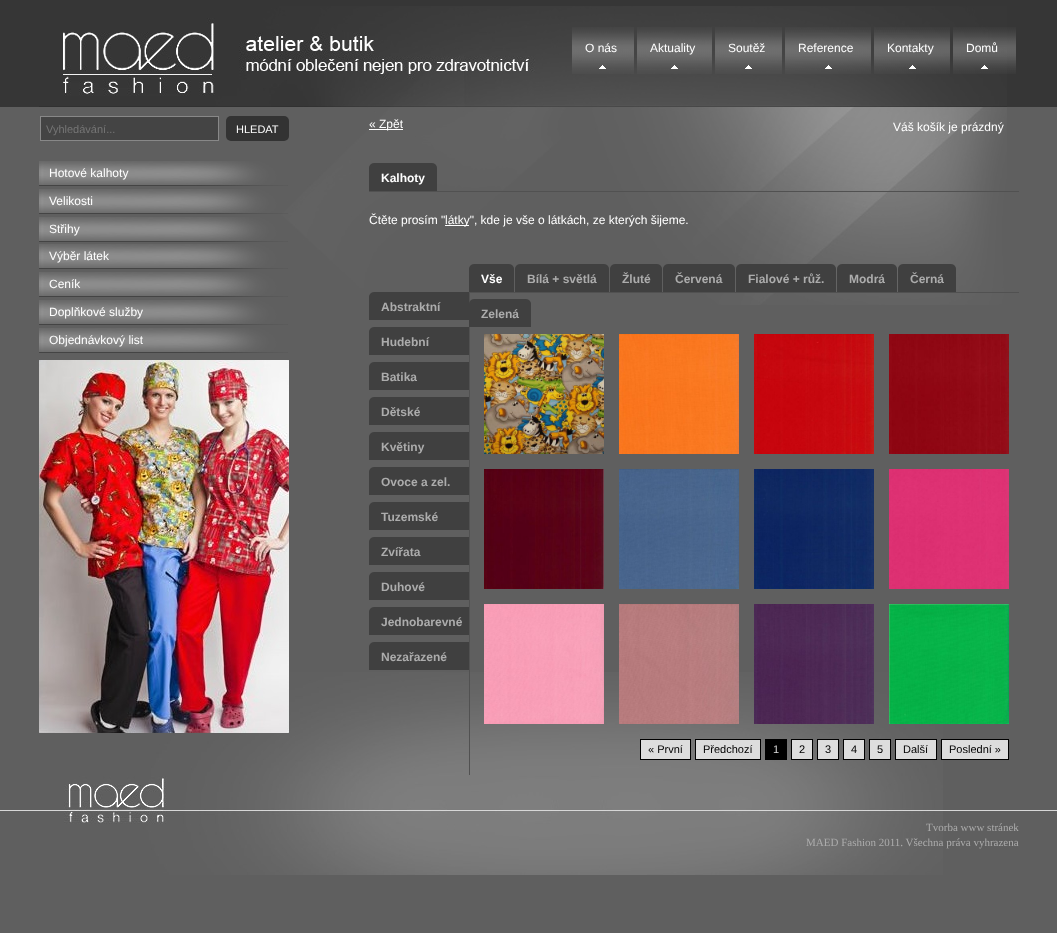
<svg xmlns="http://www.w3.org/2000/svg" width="1057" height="933">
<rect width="100%" height="100%" fill="#5f5f5f"/>
<rect width="1057" height="107" fill="#363636"/>
<image x="39" y="6" width="968" height="299" href="media/1.png"/>
<rect y="810" width="1057" height="1" fill="#d7d7d7"/>
<image x="64" y="672" width="879" height="203" href="media/2.png"/>
<image x="63" y="18" width="472" height="78" href="media/3.png"/>
<image x="572" y="27" width="62" height="47" href="media/4.png"/>
<image x="599" y="65" width="7" height="4" href="media/5.png"/>
<text x="585" y="52" style="font-family:Liberation Sans;font-size:12px;fill:#fff">O nás</text>
<image x="637" y="27" width="75" height="47" href="media/6.png"/>
<image x="671" y="65" width="7" height="4" href="media/7.png"/>
<text x="650" y="52" style="font-family:Liberation Sans;font-size:12px;fill:#fff">Aktuality</text>
<image x="715" y="27" width="67" height="47" href="media/8.png"/>
<image x="745" y="65" width="7" height="4" href="media/9.png"/>
<text x="728" y="52" style="font-family:Liberation Sans;font-size:12px;fill:#fff">Soutěž</text>
<image x="785" y="27" width="86" height="47" href="media/10.png"/>
<image x="825" y="65" width="7" height="4" href="media/11.png"/>
<text x="798" y="52" style="font-family:Liberation Sans;font-size:12px;fill:#fff">Reference</text>
<image x="874" y="27" width="76" height="47" href="media/12.png"/>
<image x="909" y="65" width="7" height="4" href="media/13.png"/>
<text x="887" y="52" style="font-family:Liberation Sans;font-size:12px;fill:#fff">Kontakty</text>
<image x="953" y="27" width="63" height="47" href="media/14.png"/>
<image x="981" y="65" width="7" height="4" href="media/15.png"/>
<text x="966" y="52" style="font-family:Liberation Sans;font-size:12px;fill:#fff">Domů</text>
<rect x="40.5" y="116.5" width="178" height="24" fill="#444" stroke="#888"/>
<text x="46" y="133" style="font-family:Liberation Sans;font-size:11px;fill:#757575">Vyhledávání...</text>
<rect x="226" y="116" width="63" height="25" rx="5" fill="#333"/>
<text x="236" y="133" style="font-family:Liberation Sans;font-size:11px;fill:#fff">HLEDAT</text>
<image x="39" y="161" width="249" height="25" href="media/16.png"/>
<text x="49" y="177" style="font-family:Liberation Sans;font-size:12px;fill:#fff">Hotové kalhoty</text>
<image x="39" y="189" width="249" height="25" href="media/17.png"/>
<text x="49" y="205" style="font-family:Liberation Sans;font-size:12px;fill:#fff">Velikosti</text>
<image x="39" y="217" width="249" height="25" href="media/18.png"/>
<text x="49" y="233" style="font-family:Liberation Sans;font-size:12px;fill:#fff">Střihy</text>
<image x="39" y="244" width="249" height="25" href="media/16.png"/>
<text x="49" y="260" style="font-family:Liberation Sans;font-size:12px;fill:#fff">Výběr látek</text>
<image x="39" y="272" width="249" height="25" href="media/16.png"/>
<text x="49" y="288" style="font-family:Liberation Sans;font-size:12px;fill:#fff">Ceník</text>
<image x="39" y="300" width="249" height="25" href="media/16.png"/>
<text x="49" y="316" style="font-family:Liberation Sans;font-size:12px;fill:#fff">Doplňkové služby</text>
<image x="39" y="328" width="249" height="25" href="media/16.png"/>
<text x="49" y="344" style="font-family:Liberation Sans;font-size:12px;fill:#fff">Objednávkový list</text>
<image x="39" y="360" width="250" height="373" href="media/19.png"/>
<rect x="369" y="129" width="34" height="1" fill="#fff"/>
<text x="369" y="128" style="font-family:Liberation Sans;font-size:12px;fill:#fff">« Zpět</text>
<text x="893" y="131" style="font-family:Liberation Sans;font-size:12px;fill:#fff">Váš košík je prázdný</text>
<rect x="369" y="191" width="650" height="1" fill="#515151"/>
<image x="369" y="163" width="5" height="28" href="media/20.png"/>
<rect x="374" y="163" width="58" height="28" fill="#404040"/>
<text x="381" y="182" style="font-family:Liberation Sans;font-size:12px;font-weight:bold;fill:#fff">Kalhoty</text>
<image x="432" y="163" width="5" height="28" href="media/21.png"/>
<text x="369" y="224" style="font-family:Liberation Sans;font-size:12px;fill:#fff">Čtěte prosím "</text>
<rect x="445" y="225" width="24" height="1" fill="#fff"/>
<text x="445" y="224" style="font-family:Liberation Sans;font-size:12px;fill:#fff">látky", kde je vše o látkách, ze kterých šijeme.</text>
<rect x="469" y="292" width="1" height="483" fill="#515151"/>
<rect x="469" y="292" width="550" height="1" fill="#515151"/>
<image x="469" y="264" width="5" height="28" href="media/22.png"/>
<rect x="474" y="264" width="35" height="28" fill="#404040"/>
<text x="481" y="283" style="font-family:Liberation Sans;font-size:12px;font-weight:bold;fill:#fff">Vše</text>
<image x="509" y="264" width="5" height="28" href="media/23.png"/>
<image x="515" y="264" width="5" height="28" href="media/22.png"/>
<rect x="520" y="264" width="84" height="28" fill="#404040"/>
<text x="527" y="283" style="font-family:Liberation Sans;font-size:12px;font-weight:bold;fill:#acacac">Bílá + světlá</text>
<image x="604" y="264" width="5" height="28" href="media/23.png"/>
<image x="610" y="264" width="5" height="28" href="media/22.png"/>
<rect x="615" y="264" width="42" height="28" fill="#404040"/>
<text x="622" y="283" style="font-family:Liberation Sans;font-size:12px;font-weight:bold;fill:#acacac">Žluté</text>
<image x="657" y="264" width="5" height="28" href="media/23.png"/>
<image x="663" y="264" width="5" height="28" href="media/22.png"/>
<rect x="668" y="264" width="62" height="28" fill="#404040"/>
<text x="675" y="283" style="font-family:Liberation Sans;font-size:12px;font-weight:bold;fill:#acacac">Červená</text>
<image x="730" y="264" width="5" height="28" href="media/21.png"/>
<image x="736" y="264" width="5" height="28" href="media/24.png"/>
<rect x="741" y="264" width="90" height="28" fill="#404040"/>
<text x="748" y="283" style="font-family:Liberation Sans;font-size:12px;font-weight:bold;fill:#acacac">Fialové + růž.</text>
<image x="831" y="264" width="5" height="28" href="media/25.png"/>
<image x="837" y="264" width="5" height="28" href="media/26.png"/>
<rect x="842" y="264" width="50" height="28" fill="#404040"/>
<text x="849" y="283" style="font-family:Liberation Sans;font-size:12px;font-weight:bold;fill:#acacac">Modrá</text>
<image x="892" y="264" width="5" height="28" href="media/27.png"/>
<image x="898" y="264" width="5" height="28" href="media/28.png"/>
<rect x="903" y="264" width="48" height="28" fill="#404040"/>
<text x="910" y="283" style="font-family:Liberation Sans;font-size:12px;font-weight:bold;fill:#acacac">Černá</text>
<image x="951" y="264" width="5" height="28" href="media/29.png"/>
<image x="469" y="299" width="5" height="28" href="media/30.png"/>
<rect x="474" y="299" width="52" height="28" fill="#404040"/>
<text x="481" y="318" style="font-family:Liberation Sans;font-size:12px;font-weight:bold;fill:#acacac">Zelená</text>
<image x="526" y="299" width="5" height="28" href="media/23.png"/>
<image x="369" y="292" width="5" height="28" href="media/22.png"/>
<rect x="374" y="292" width="95" height="28" fill="#404040"/>
<text x="381" y="311" style="font-family:Liberation Sans;font-size:12px;font-weight:bold;fill:#acacac">Abstraktní</text>
<image x="369" y="327" width="5" height="28" href="media/22.png"/>
<rect x="374" y="327" width="95" height="28" fill="#404040"/>
<text x="381" y="346" style="font-family:Liberation Sans;font-size:12px;font-weight:bold;fill:#acacac">Hudební</text>
<image x="369" y="362" width="5" height="28" href="media/22.png"/>
<rect x="374" y="362" width="95" height="28" fill="#404040"/>
<text x="381" y="381" style="font-family:Liberation Sans;font-size:12px;font-weight:bold;fill:#acacac">Batika</text>
<image x="369" y="397" width="5" height="28" href="media/22.png"/>
<rect x="374" y="397" width="95" height="28" fill="#404040"/>
<text x="381" y="416" style="font-family:Liberation Sans;font-size:12px;font-weight:bold;fill:#acacac">Dětské</text>
<image x="369" y="432" width="5" height="28" href="media/22.png"/>
<rect x="374" y="432" width="95" height="28" fill="#404040"/>
<text x="381" y="451" style="font-family:Liberation Sans;font-size:12px;font-weight:bold;fill:#acacac">Květiny</text>
<image x="369" y="467" width="5" height="28" href="media/22.png"/>
<rect x="374" y="467" width="95" height="28" fill="#404040"/>
<text x="381" y="486" style="font-family:Liberation Sans;font-size:12px;font-weight:bold;fill:#acacac">Ovoce a zel.</text>
<image x="369" y="502" width="5" height="28" href="media/22.png"/>
<rect x="374" y="502" width="95" height="28" fill="#404040"/>
<text x="381" y="521" style="font-family:Liberation Sans;font-size:12px;font-weight:bold;fill:#acacac">Tuzemské</text>
<image x="369" y="537" width="5" height="28" href="media/22.png"/>
<rect x="374" y="537" width="95" height="28" fill="#404040"/>
<text x="381" y="556" style="font-family:Liberation Sans;font-size:12px;font-weight:bold;fill:#acacac">Zvířata</text>
<image x="369" y="572" width="5" height="28" href="media/22.png"/>
<rect x="374" y="572" width="95" height="28" fill="#404040"/>
<text x="381" y="591" style="font-family:Liberation Sans;font-size:12px;font-weight:bold;fill:#acacac">Duhové</text>
<image x="369" y="607" width="5" height="28" href="media/22.png"/>
<rect x="374" y="607" width="95" height="28" fill="#404040"/>
<text x="381" y="626" style="font-family:Liberation Sans;font-size:12px;font-weight:bold;fill:#acacac">Jednobarevné</text>
<image x="369" y="642" width="5" height="28" href="media/22.png"/>
<rect x="374" y="642" width="95" height="28" fill="#404040"/>
<text x="381" y="661" style="font-family:Liberation Sans;font-size:12px;font-weight:bold;fill:#acacac">Nezařazené</text>
<image x="484" y="334" width="120" height="120" href="media/31.png"/>
<image x="619" y="334" width="120" height="120" href="media/32.png"/>
<image x="754" y="334" width="120" height="120" href="media/33.png"/>
<image x="889" y="334" width="120" height="120" href="media/34.png"/>
<image x="484" y="469" width="120" height="120" href="media/35.png"/>
<image x="619" y="469" width="120" height="120" href="media/36.png"/>
<image x="754" y="469" width="120" height="120" href="media/37.png"/>
<image x="889" y="469" width="120" height="120" href="media/38.png"/>
<image x="484" y="604" width="120" height="120" href="media/39.png"/>
<image x="619" y="604" width="120" height="120" href="media/40.png"/>
<image x="754" y="604" width="120" height="120" href="media/41.png"/>
<image x="889" y="604" width="120" height="120" href="media/42.png"/>
<rect x="640.5" y="739.5" width="50" height="20" fill="#ddd" stroke="#000"/>
<text x="648" y="753" style="font-family:Liberation Sans;font-size:11px;fill:#000">« První</text>
<rect x="695.5" y="739.5" width="65" height="20" fill="#ddd" stroke="#000"/>
<text x="703" y="753" style="font-family:Liberation Sans;font-size:11px;fill:#000">Předchozí</text>
<rect x="765" y="739" width="22" height="21" fill="#000"/>
<text x="773" y="753" style="font-family:Liberation Sans;font-size:11px;fill:#ddd">1</text>
<rect x="791.5" y="739.5" width="21" height="20" fill="#ddd" stroke="#000"/>
<text x="799" y="753" style="font-family:Liberation Sans;font-size:11px;fill:#000">2</text>
<rect x="817.5" y="739.5" width="21" height="20" fill="#ddd" stroke="#000"/>
<text x="825" y="753" style="font-family:Liberation Sans;font-size:11px;fill:#000">3</text>
<rect x="843.5" y="739.5" width="21" height="20" fill="#ddd" stroke="#000"/>
<text x="851" y="753" style="font-family:Liberation Sans;font-size:11px;fill:#000">4</text>
<rect x="869.5" y="739.5" width="21" height="20" fill="#ddd" stroke="#000"/>
<text x="877" y="753" style="font-family:Liberation Sans;font-size:11px;fill:#000">5</text>
<rect x="895.5" y="739.5" width="41" height="20" fill="#ddd" stroke="#000"/>
<text x="903" y="753" style="font-family:Liberation Sans;font-size:11px;fill:#000">Další</text>
<rect x="941.5" y="739.5" width="67" height="20" fill="#ddd" stroke="#000"/>
<text x="949" y="753" style="font-family:Liberation Sans;font-size:11px;fill:#000">Poslední »</text>
<text x="926" y="831" style="font-family:Liberation Serif;font-size:11px;fill:#acacac">Tvorba www stránek</text>
<text x="806" y="846" style="font-family:Liberation Serif;font-size:11px;fill:#acacac">MAED Fashion 2011. Všechna práva vyhrazena</text>
</svg>
